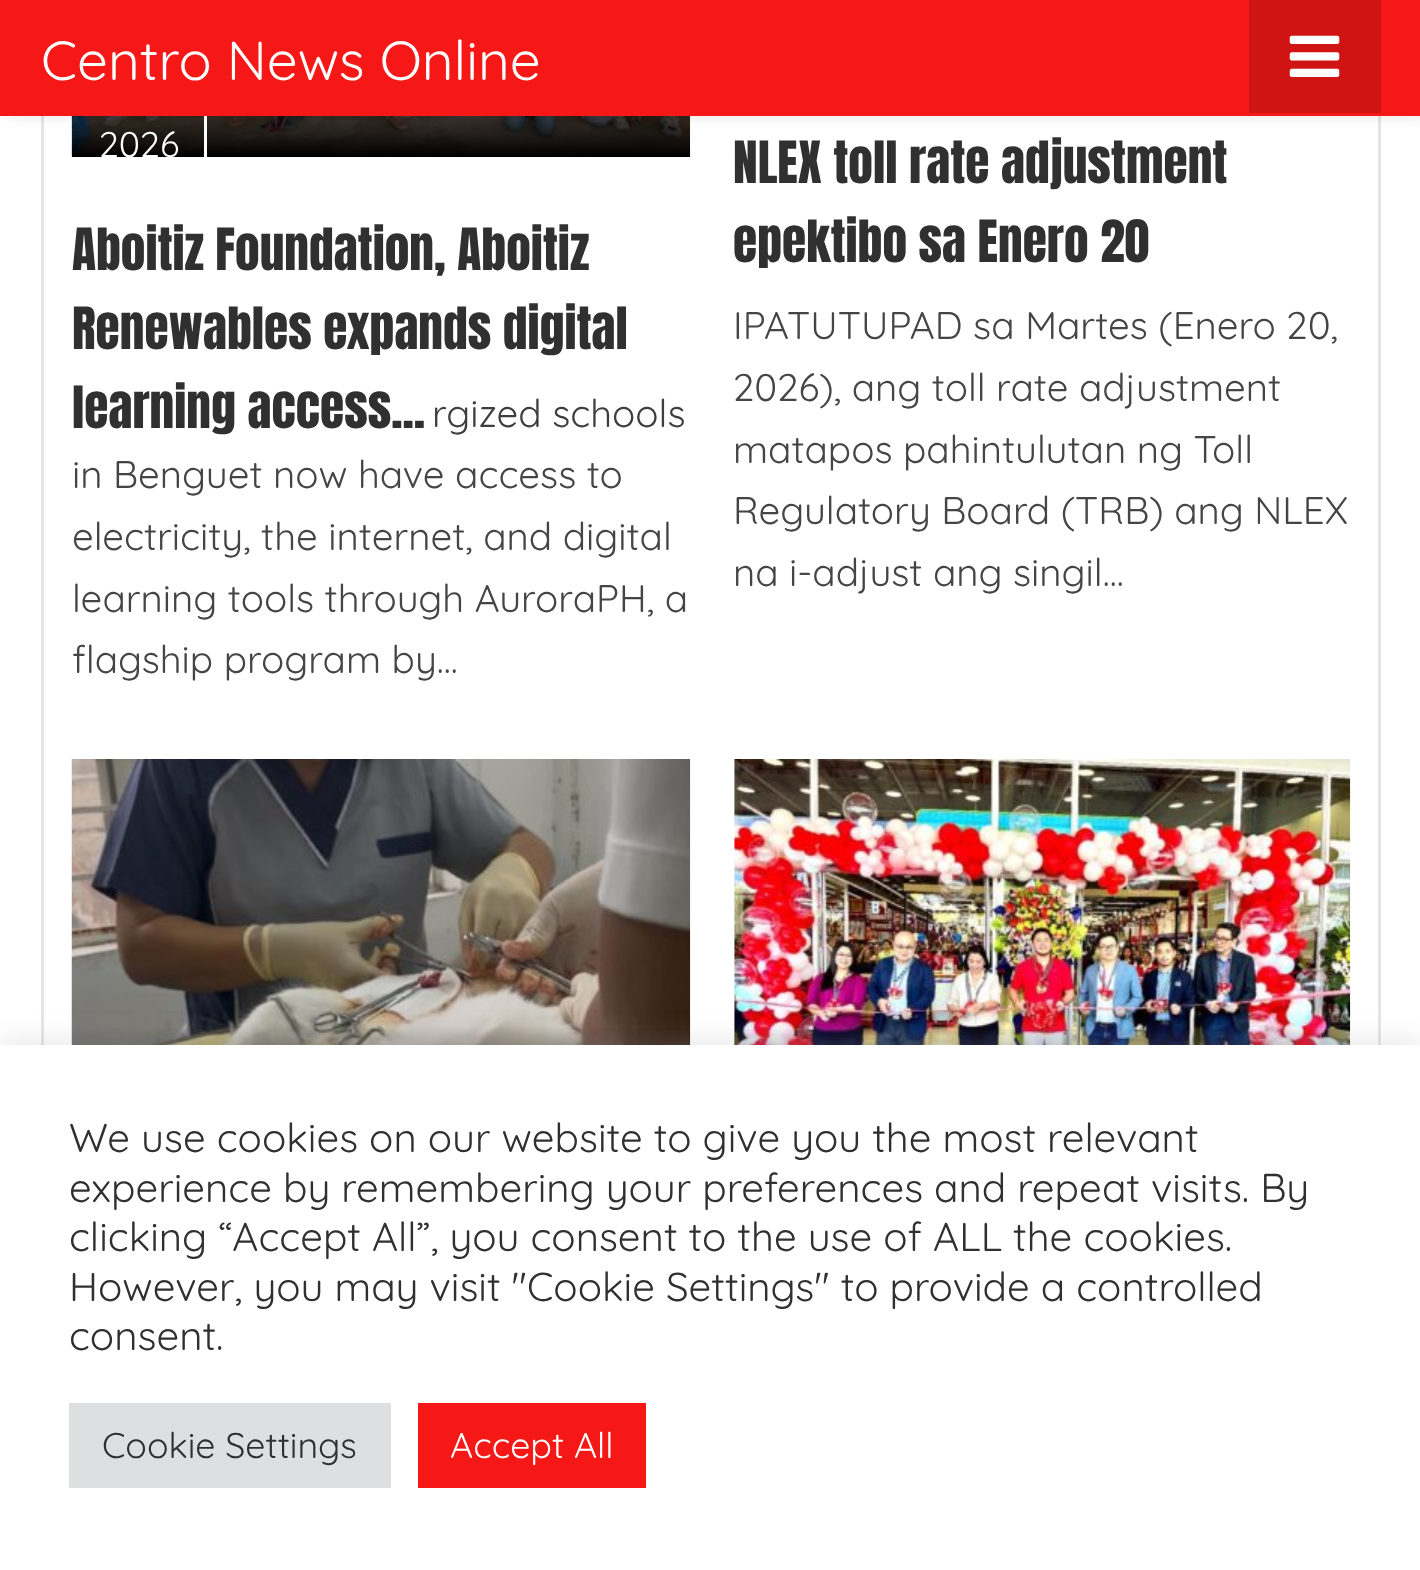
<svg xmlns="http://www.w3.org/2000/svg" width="1420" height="1570">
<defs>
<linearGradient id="g1" gradientUnits="userSpaceOnUse" x1="381" y1="30" x2="381" y2="157"><stop offset="0" stop-color="#000" stop-opacity="0"/><stop offset="1" stop-color="#000"/></linearGradient>
<clipPath id="clip1"><rect x="72" width="618" height="157"/></clipPath>
<linearGradient id="g2" gradientUnits="userSpaceOnUse" x1="1042" y1="1026" x2="1042" y2="1152"><stop offset="0" stop-color="#000" stop-opacity="0"/><stop offset="1" stop-color="#000"/></linearGradient>
</defs>
<rect width="100%" height="100%" fill="#fff"/>
<rect x="42.5" y="-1.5" width="1337" height="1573" fill="none" stroke="#e5e5e5" stroke-width="3"/>
<image x="71" y="116" width="620" height="41" href="media/2.png"/>
<rect x="72" y="116" width="618" height="41" fill="url(#g1)"/>
<rect x="204" y="116" width="3" height="41" fill="#fff"/>
<rect x="6" width="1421" height="116" fill="#0000001a" filter="blur(7px)"/>
<rect width="1420" height="116" fill="#f51816"/>
<text x="41" y="80" style="font-family:Quicksand;font-size:55px;font-weight:300;fill:#fff">Centro News Online</text>
<rect x="1249" width="132" height="113" fill="#d01413"/>
<image x="1289" y="35" width="51" height="42" href="media/1.png"/>
<g clip-path="url(#clip1)">
<text x="99" y="157" style="font-family:Quicksand;font-size:35.75px;font-weight:300;fill:#fff">2026</text>
</g>
<text x="72" y="270" style="font-family:Anton;font-size:49.5px;fill:#303030">Aboitiz Foundation, Aboitiz</text>
<text x="72" y="349" style="font-family:Anton;font-size:49.5px;fill:#303030">Renewables expands digital</text>
<text x="72" y="428" style="font-family:Anton;font-size:49.5px;fill:#303030">learning access...</text>
<text x="432" y="427" style="font-family:Quicksand;font-size:38.5px;font-weight:300;fill:#3e3e3e">rgized schools</text>
<text x="72" y="488" style="font-family:Quicksand;font-size:38.5px;font-weight:300;fill:#454545">in Benguet now have access to</text>
<text x="72" y="550" style="font-family:Quicksand;font-size:38.5px;font-weight:300;fill:#454545">electricity, the internet, and digital</text>
<text x="72" y="612" style="font-family:Quicksand;font-size:38.5px;font-weight:300;fill:#454545">learning tools through AuroraPH, a</text>
<text x="72" y="673" style="font-family:Quicksand;font-size:38.5px;font-weight:300;fill:#454545">flagship program by...</text>
<text x="733" y="183" style="font-family:Anton;font-size:49.5px;fill:#303030">NLEX toll rate adjustment</text>
<text x="733" y="262" style="font-family:Anton;font-size:49.5px;fill:#303030">epektibo sa Enero 20</text>
<text x="733" y="339" style="font-family:Quicksand;font-size:38.5px;font-weight:300;fill:#454545">IPATUTUPAD sa Martes (Enero 20,</text>
<text x="733" y="401" style="font-family:Quicksand;font-size:38.5px;font-weight:300;fill:#454545">2026), ang toll rate adjustment</text>
<text x="733" y="463" style="font-family:Quicksand;font-size:38.5px;font-weight:300;fill:#454545">matapos pahintulutan ng Toll</text>
<text x="733" y="524" style="font-family:Quicksand;font-size:38.5px;font-weight:300;fill:#454545">Regulatory Board (TRB) ang NLEX</text>
<text x="733" y="586" style="font-family:Quicksand;font-size:38.5px;font-weight:300;fill:#454545">na i-adjust ang singil...</text>
<image x="71" y="759" width="620" height="286" href="media/3.png"/>
<image x="734" y="759" width="617" height="286" href="media/4.png"/>
<rect x="734" y="1029" width="616" height="16" fill="url(#g2)"/>
<rect y="1042" width="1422" height="526" fill="#acabab4d" filter="blur(14px)"/>
<rect y="1045" width="1420" height="525" fill="#fff"/>
<text x="69" y="1152" style="font-family:Quicksand;font-size:40.3px;font-weight:300;fill:#303030">We use cookies on our website to give you the most relevant</text>
<text x="69" y="1202" style="font-family:Quicksand;font-size:40.3px;font-weight:300;fill:#303030">experience by remembering your preferences and repeat visits. By</text>
<text x="69" y="1251" style="font-family:Quicksand;font-size:40.3px;font-weight:300;fill:#303030">clicking “Accept All”, you consent to the use of ALL the cookies.</text>
<text x="69" y="1301" style="font-family:Quicksand;font-size:40.3px;font-weight:300;fill:#303030">However, you may visit "Cookie Settings" to provide a controlled</text>
<text x="69" y="1350" style="font-family:Quicksand;font-size:40.3px;font-weight:300;fill:#303030">consent.</text>
<rect x="69" y="1403" width="322" height="85" fill="#dedfe0"/>
<text x="102" y="1458" style="font-family:Quicksand;font-size:35.75px;font-weight:300;fill:#303030">Cookie Settings</text>
<rect x="418" y="1403" width="228" height="85" fill="#f51816"/>
<text x="450" y="1458" style="font-family:Quicksand;font-size:35.75px;font-weight:300;fill:#fff">Accept All</text>
</svg>
